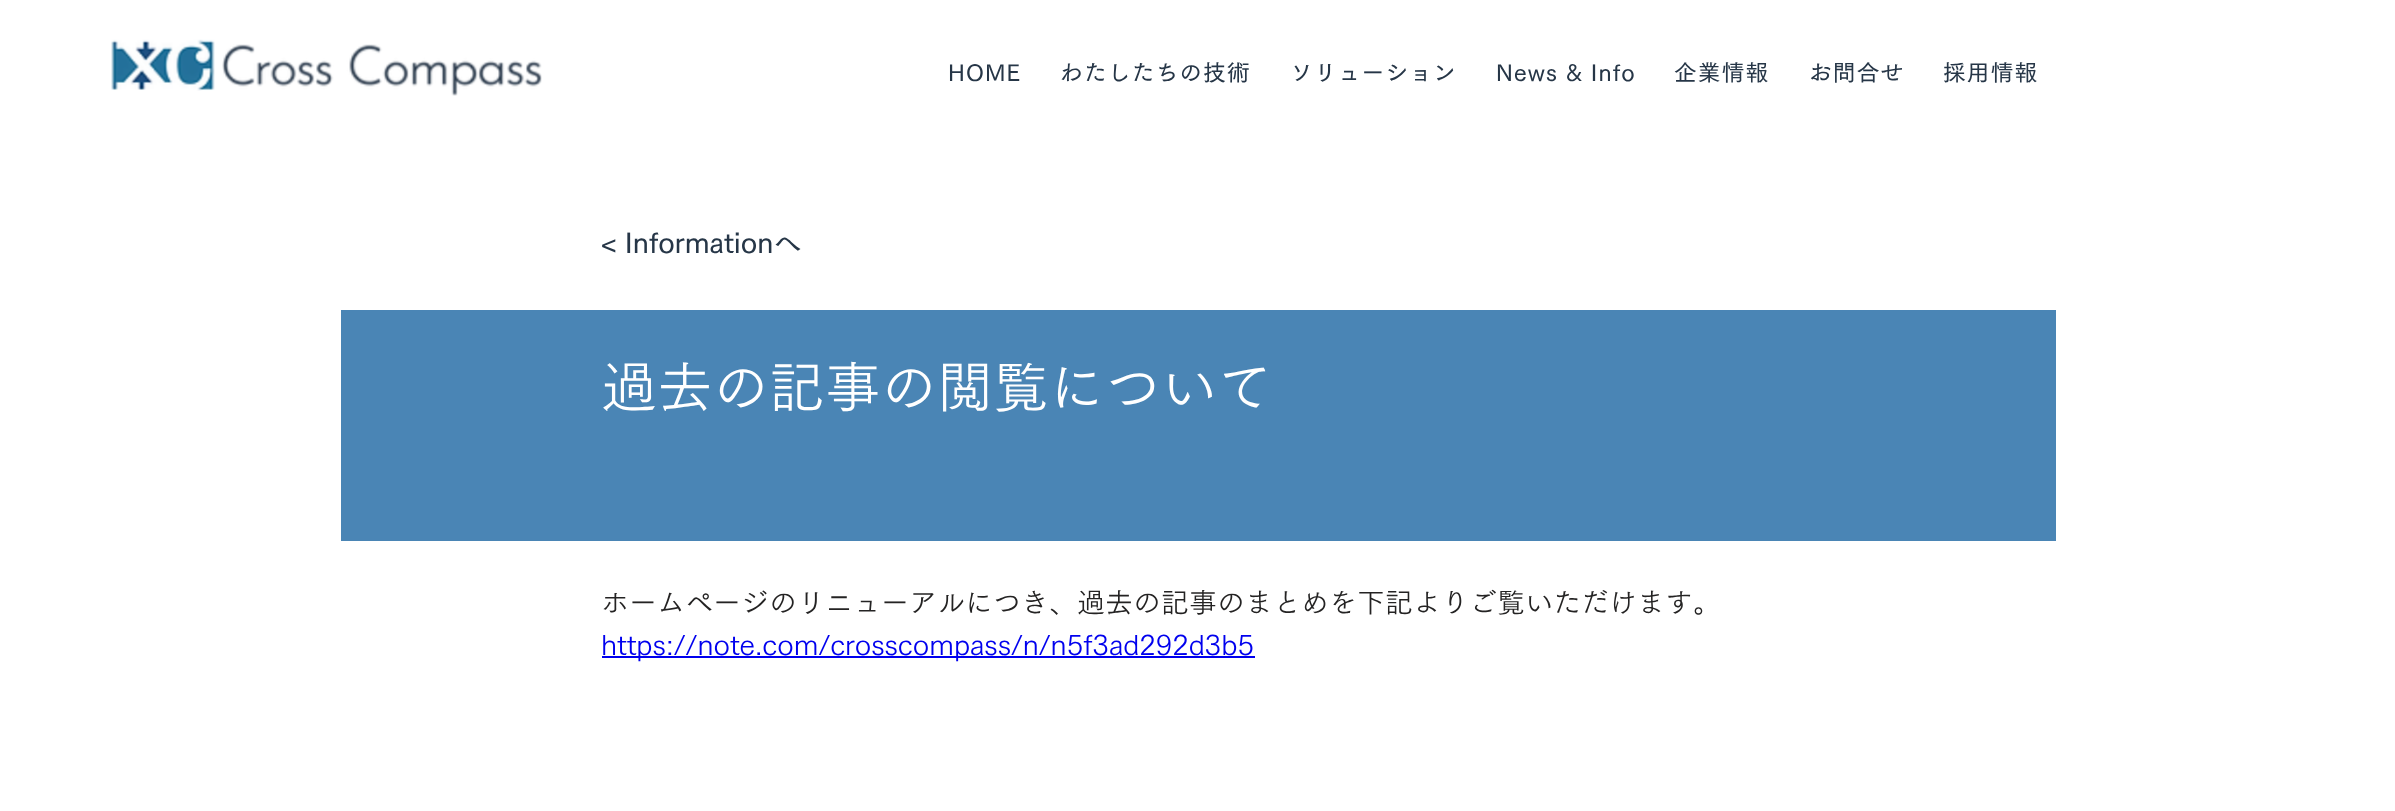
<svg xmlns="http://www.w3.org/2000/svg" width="2395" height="811">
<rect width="100%" height="100%" fill="#fff"/>
<image x="111" y="39" width="104" height="52" href="media/1.png"/>
<image x="222" y="44" width="320" height="52" href="media/2.png"/>
<text x="948" y="81" style="font-family:'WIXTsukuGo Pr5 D';font-size:22.75px;font-weight:600;letter-spacing:1.1px;fill:#263647">HOME</text>
<text x="1060" y="81" style="font-family:'WIXTsukuGo Pr5 D';font-size:22.75px;font-weight:600;letter-spacing:1.1px;fill:#263647">わたしたちの技術</text>
<text x="1290" y="81" style="font-family:'WIXTsukuGo Pr5 D';font-size:22.75px;font-weight:600;letter-spacing:1.1px;fill:#263647">ソリューション</text>
<text x="1496" y="81" style="font-family:'WIXTsukuGo Pr5 D';font-size:22.75px;font-weight:600;letter-spacing:1.1px;fill:#263647">News &amp; Info</text>
<text x="1674" y="81" style="font-family:'WIXTsukuGo Pr5 D';font-size:22.75px;font-weight:600;letter-spacing:1.1px;fill:#263647">企業情報</text>
<text x="1809" y="81" style="font-family:'WIXTsukuGo Pr5 D';font-size:22.75px;font-weight:600;letter-spacing:1.1px;fill:#263647">お問合せ</text>
<text x="1943" y="81" style="font-family:'WIXTsukuGo Pr5 D';font-size:22.75px;font-weight:600;letter-spacing:1.1px;fill:#263647">採用情報</text>
<text x="601" y="253" style="font-family:'WIXTsukuGo Pr5 D';font-size:28px;font-weight:600;fill:#263647">&lt; Informationへ</text>
<rect x="341" y="310" width="1715" height="231" fill="#4a85b5"/>
<text x="601" y="408" style="font-family:'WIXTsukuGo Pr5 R';font-size:56px;fill:#fff">過去の記事の閲覧について</text>
<text x="601" y="613" style="font-family:'WIXTsukuGo Pr5 R';font-size:28px;fill:#242323">ホームページのリニューアルにつき、過去の記事のまとめを下記よりご覧いただけます。</text>
<rect x="602" y="656" width="653" height="2" fill="#00e"/>
<text x="601" y="655" style="font-family:'WIXTsukuGo Pr5 R';font-size:28px;fill:#00e">https://note.com/crosscompass/n/n5f3ad292d3b5</text>
</svg>
